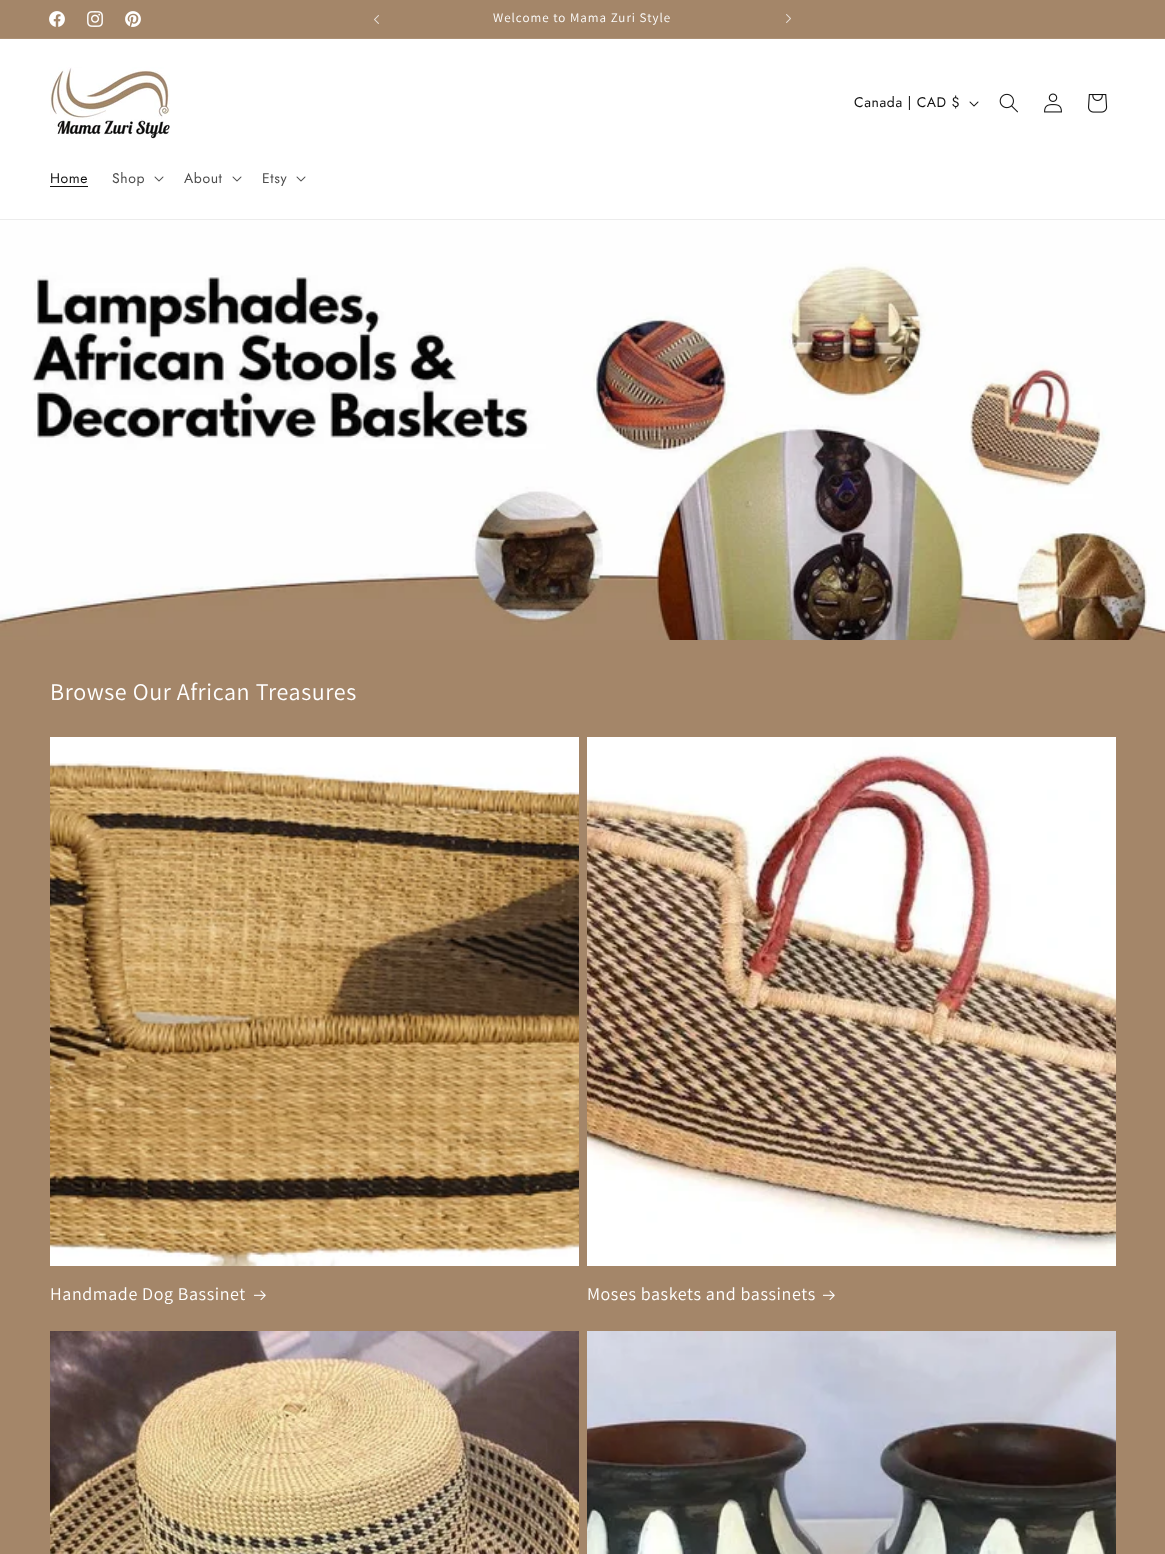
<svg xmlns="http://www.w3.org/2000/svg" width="1165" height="1554">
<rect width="100%" height="100%" fill="#fff"/>
<rect width="1165" height="38" fill="#a48669"/>
<rect y="38" width="1165" height="1" fill="#ab9075"/>
<image x="49" y="11" width="16" height="16" href="media/1.png"/>
<image x="87" y="11" width="16" height="16" href="media/2.png"/>
<image x="125" y="11" width="16" height="16" href="media/3.png"/>
<image x="374" y="15" width="5" height="9" href="media/4.png"/>
<text x="493" y="22" style="font-family:Assistant;font-size:13px;letter-spacing:1px;fill:#fff">Welcome to Mama Zuri Style</text>
<image x="786" y="14" width="5" height="9" href="media/5.png"/>
<rect y="219" width="1165" height="1" fill="#ececec"/>
<image x="50" y="67" width="120" height="72" href="media/6.png"/>
<text x="854" y="107" style="font-family:Jost;font-size:14px;letter-spacing:0.6px;fill:#121212">Canada | CAD $</text>
<image x="969" y="101" width="10" height="6" href="media/7.png"/>
<image x="999" y="93" width="19" height="20" href="media/8.png"/>
<image x="1044" y="93" width="18" height="20" href="media/9.png"/>
<image x="1088" y="94" width="20" height="19" href="media/10.png"/>
<text x="50" y="183" style="font-family:Jost;font-size:14px;letter-spacing:0.6px;fill:#121212">Home</text>
<rect x="50" y="186" width="38" height="1" fill="#121212"/>
<text x="112" y="183" style="font-family:Jost;font-size:14px;letter-spacing:0.6px;fill:#4d4d4d">Shop</text>
<image x="154" y="176" width="10" height="6" href="media/11.png"/>
<text x="184" y="183" style="font-family:Jost;font-size:14px;letter-spacing:0.6px;fill:#4d4d4d">About</text>
<image x="232" y="176" width="10" height="6" href="media/11.png"/>
<text x="262" y="183" style="font-family:Jost;font-size:14px;letter-spacing:0.6px;fill:#4d4d4d">Etsy</text>
<image x="296" y="176" width="10" height="6" href="media/11.png"/>
<image x="0" y="220" width="1165" height="420" href="media/12.png"/>
<rect y="640" width="1165" height="914" fill="#a48669"/>
<text x="50" y="700" style="font-family:Assistant;font-size:24px;letter-spacing:0.6px;fill:#fff">Browse Our African Treasures</text>
<rect x="50" y="737" width="529" height="24" fill="#fff"/>
<image x="50" y="761" width="529" height="505" href="media/13.png"/>
<text x="50" y="1300" style="font-family:Assistant;font-size:18px;letter-spacing:0.6px;fill:#fff">Handmade Dog Bassinet</text>
<image x="254" y="1290" width="12" height="10" href="media/14.png"/>
<image x="587" y="737" width="529" height="529" href="media/15.png"/>
<text x="587" y="1300" style="font-family:Assistant;font-size:18px;letter-spacing:0.6px;fill:#fff">Moses baskets and bassinets</text>
<image x="823" y="1290" width="12" height="10" href="media/14.png"/>
<image x="50" y="1331" width="529" height="223" href="media/16.png"/>
<image x="587" y="1331" width="529" height="223" href="media/17.png"/>
</svg>
